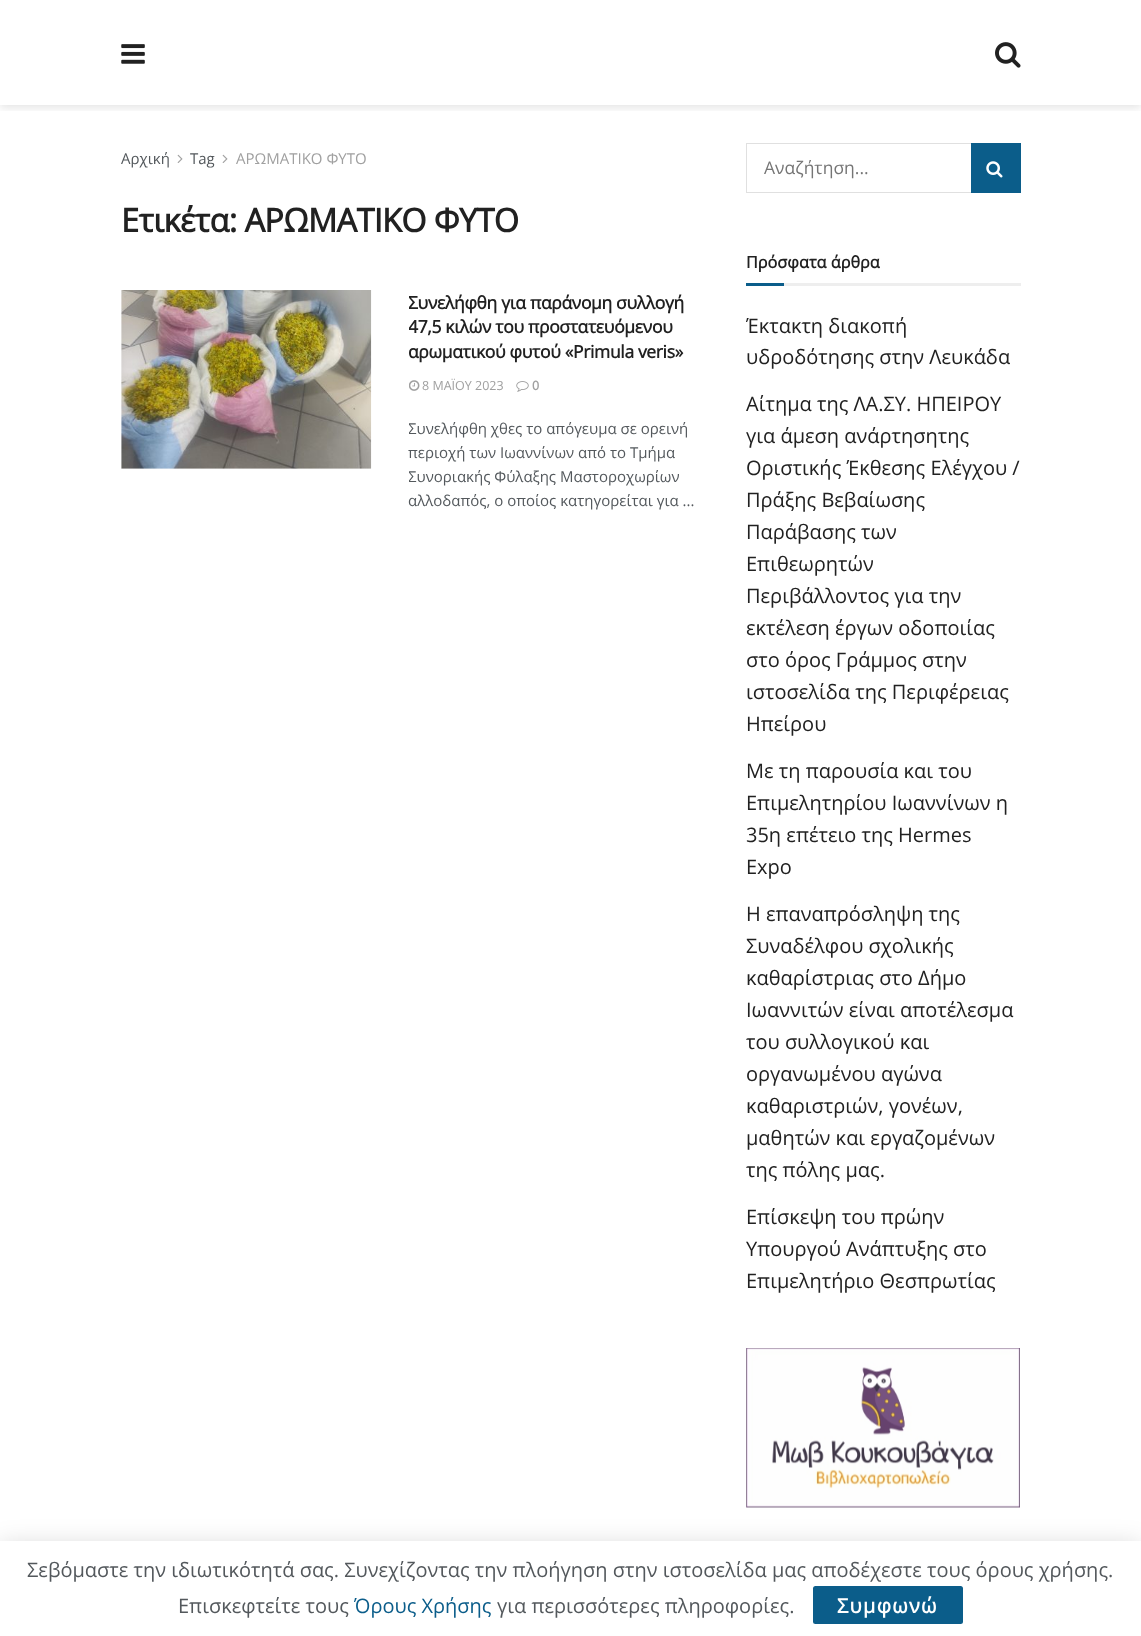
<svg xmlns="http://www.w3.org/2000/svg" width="1141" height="1636">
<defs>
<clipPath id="clip1"><rect x="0" y="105" width="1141" height="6"/></clipPath>
<clipPath id="clip2"><rect x="409" y="290" width="300" height="223"/></clipPath>
</defs>
<rect width="100%" height="100%" fill="#fff"/>
<g clip-path="url(#clip1)">
<rect y="3" width="1141" height="105" fill="#0000001a" filter="blur(4px)"/>
</g>
<image x="121" y="44" width="24" height="20" href="media/1.png"/>
<image x="995" y="42" width="26" height="26" href="media/2.png"/>
<text x="121" y="164" style="font-family:Open Sans;font-size:15px;fill:#53585c">Αρχική</text>
<image x="177" y="154" width="6" height="9" href="media/3.png"/>
<text x="190" y="164" style="font-family:Open Sans;font-size:15px;fill:#53585c">Tag</text>
<image x="222" y="154" width="6" height="9" href="media/3.png"/>
<text x="236" y="164" style="font-family:Open Sans;font-size:15px;fill:#a0a0a0">ΑΡΩΜΑΤΙΚΟ ΦΥΤΟ</text>
<text x="121" y="232" style="font-family:Open Sans;font-size:32.5px;font-weight:bold;letter-spacing:-0.65px;fill:#212121">Ετικέτα: ΑΡΩΜΑΤΙΚΟ ΦΥΤΟ</text>
<rect x="121" y="290" width="250" height="179" fill="#f7f7f7"/>
<image x="121" y="290" width="251" height="179" href="media/4.png"/>
<g clip-path="url(#clip2)">
<text x="408" y="309" style="font-family:Open Sans;font-size:17.5px;font-weight:bold;letter-spacing:-0.35px;fill:#212121">Συνελήφθη για παράνομη συλλογή</text>
<text x="408" y="333" style="font-family:Open Sans;font-size:17.5px;font-weight:bold;letter-spacing:-0.35px;fill:#212121">47,5 κιλών του προστατευόμενου</text>
</g>
<text x="408" y="358" style="font-family:Open Sans;font-size:17.5px;font-weight:bold;letter-spacing:-0.35px;fill:#212121">αρωματικού φυτού «Primula veris»</text>
<image x="409" y="380" width="11" height="11" href="media/5.png"/>
<text x="422" y="390" style="font-family:Open Sans;font-size:12.5px;fill:#a0a0a0">8 ΜΑΪΟΥ 2023</text>
<image x="516" y="381" width="13" height="11" href="media/6.png"/>
<text x="532" y="390" style="font-family:Open Sans;font-size:12.5px;font-weight:bold;fill:#a0a0a0">0</text>
<g clip-path="url(#clip2)">
<text x="408" y="434" style="font-family:Open Sans;font-size:15px;fill:#53585c">Συνελήφθη χθες το απόγευμα σε ορεινή</text>
</g>
<text x="408" y="458" style="font-family:Open Sans;font-size:15px;fill:#53585c">περιοχή των Ιωαννίνων από το Τμήμα</text>
<g clip-path="url(#clip2)">
<text x="408" y="482" style="font-family:Open Sans;font-size:15px;fill:#53585c">Συνοριακής Φύλαξης Μαστοροχωρίων</text>
</g>
<text x="408" y="506" style="font-family:Open Sans;font-size:15px;fill:#53585c">αλλοδαπός, ο οποίος κατηγορείται για ...</text>
<rect x="746.5" y="143.5" width="274" height="49" fill="none" stroke="#e0e0e0"/>
<text x="764" y="174" style="font-family:Open Sans;font-size:17.5px;fill:#757575">Αναζήτηση...</text>
<rect x="971" y="143" width="50" height="50" fill="#0b5d8a"/>
<image x="986" y="161" width="17" height="17" href="media/7.png"/>
<rect x="784" y="283" width="237" height="3" fill="#eee"/>
<text x="746" y="268" style="font-family:Open Sans;font-size:16.25px;font-weight:bold;fill:#212121">Πρόσφατα άρθρα</text>
<rect x="746" y="283" width="38" height="3" fill="#0b5d8a"/>
<text x="746" y="333" style="font-family:Open Sans;font-size:20px;fill:#212121">Έκτακτη διακοπή</text>
<text x="746" y="364" style="font-family:Open Sans;font-size:20px;fill:#212121">υδροδότησης στην Λευκάδα</text>
<text x="746" y="411" style="font-family:Open Sans;font-size:20px;fill:#212121">Αίτημα της ΛΑ.ΣΥ. ΗΠΕΙΡΟΥ</text>
<text x="746" y="443" style="font-family:Open Sans;font-size:20px;fill:#212121">για άμεση ανάρτησητης</text>
<text x="746" y="475" style="font-family:Open Sans;font-size:20px;fill:#212121">Οριστικής Έκθεσης Ελέγχου /</text>
<text x="746" y="507" style="font-family:Open Sans;font-size:20px;fill:#212121">Πράξης Βεβαίωσης</text>
<text x="746" y="539" style="font-family:Open Sans;font-size:20px;fill:#212121">Παράβασης των</text>
<text x="746" y="571" style="font-family:Open Sans;font-size:20px;fill:#212121">Επιθεωρητών</text>
<text x="746" y="603" style="font-family:Open Sans;font-size:20px;fill:#212121">Περιβάλλοντος για την</text>
<text x="746" y="635" style="font-family:Open Sans;font-size:20px;fill:#212121">εκτέλεση έργων οδοποιίας</text>
<text x="746" y="667" style="font-family:Open Sans;font-size:20px;fill:#212121">στο όρος Γράμμος στην</text>
<text x="746" y="699" style="font-family:Open Sans;font-size:20px;fill:#212121">ιστοσελίδα της Περιφέρειας</text>
<text x="746" y="731" style="font-family:Open Sans;font-size:20px;fill:#212121">Ηπείρου</text>
<text x="746" y="778" style="font-family:Open Sans;font-size:20px;fill:#212121">Με τη παρουσία και του</text>
<text x="746" y="810" style="font-family:Open Sans;font-size:20px;fill:#212121">Επιμελητηρίου Ιωαννίνων η</text>
<text x="746" y="842" style="font-family:Open Sans;font-size:20px;fill:#212121">35η επέτειο της Hermes</text>
<text x="746" y="874" style="font-family:Open Sans;font-size:20px;fill:#212121">Expo</text>
<text x="746" y="921" style="font-family:Open Sans;font-size:20px;fill:#212121">Η επαναπρόσληψη της</text>
<text x="746" y="953" style="font-family:Open Sans;font-size:20px;fill:#212121">Συναδέλφου σχολικής</text>
<text x="746" y="985" style="font-family:Open Sans;font-size:20px;fill:#212121">καθαρίστριας στο Δήμο</text>
<text x="746" y="1017" style="font-family:Open Sans;font-size:20px;fill:#212121">Ιωαννιτών είναι αποτέλεσμα</text>
<text x="746" y="1049" style="font-family:Open Sans;font-size:20px;fill:#212121">του συλλογικού και</text>
<text x="746" y="1081" style="font-family:Open Sans;font-size:20px;fill:#212121">οργανωμένου αγώνα</text>
<text x="746" y="1113" style="font-family:Open Sans;font-size:20px;fill:#212121">καθαριστριών, γονέων,</text>
<text x="746" y="1145" style="font-family:Open Sans;font-size:20px;fill:#212121">μαθητών και εργαζομένων</text>
<text x="746" y="1177" style="font-family:Open Sans;font-size:20px;fill:#212121">της πόλης μας.</text>
<text x="746" y="1224" style="font-family:Open Sans;font-size:20px;fill:#212121">Επίσκεψη του πρώην</text>
<text x="746" y="1256" style="font-family:Open Sans;font-size:20px;fill:#212121">Υπουργού Ανάπτυξης στο</text>
<text x="746" y="1288" style="font-family:Open Sans;font-size:20px;fill:#212121">Επιμελητήριο Θεσπρωτίας</text>
<image x="746" y="1348" width="274" height="160" href="media/8.png"/>
<rect y="1544" width="1141" height="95" fill="#00000026" filter="blur(12.5px)"/>
<rect y="1541" width="1141" height="95" fill="#00000033" filter="blur(0.5px)"/>
<rect y="1541" width="1141" height="95" fill="#fff"/>
<text x="27" y="1577" style="font-family:Open Sans;font-size:20px;fill:#53585c">Σεβόμαστε την ιδιωτικότητά σας. Συνεχίζοντας την πλοήγηση στην ιστοσελίδα μας αποδέχεστε τους όρους χρήσης.</text>
<text x="178" y="1613" style="font-family:Open Sans;font-size:20px;fill:#53585c">Επισκεφτείτε τους</text>
<text x="354" y="1613" style="font-family:Open Sans;font-size:20px;fill:#0b5d8a">Όρους Χρήσης</text>
<text x="497" y="1613" style="font-family:Open Sans;font-size:20px;fill:#53585c">για περισσότερες πληροφορίες.</text>
<rect x="813" y="1586" width="150" height="38" rx="2.5" fill="#0b5d8a"/>
<text x="837" y="1613" style="font-family:Open Sans;font-size:20px;font-weight:bold;letter-spacing:1.25px;fill:#fff">Συμφωνώ</text>
</svg>
